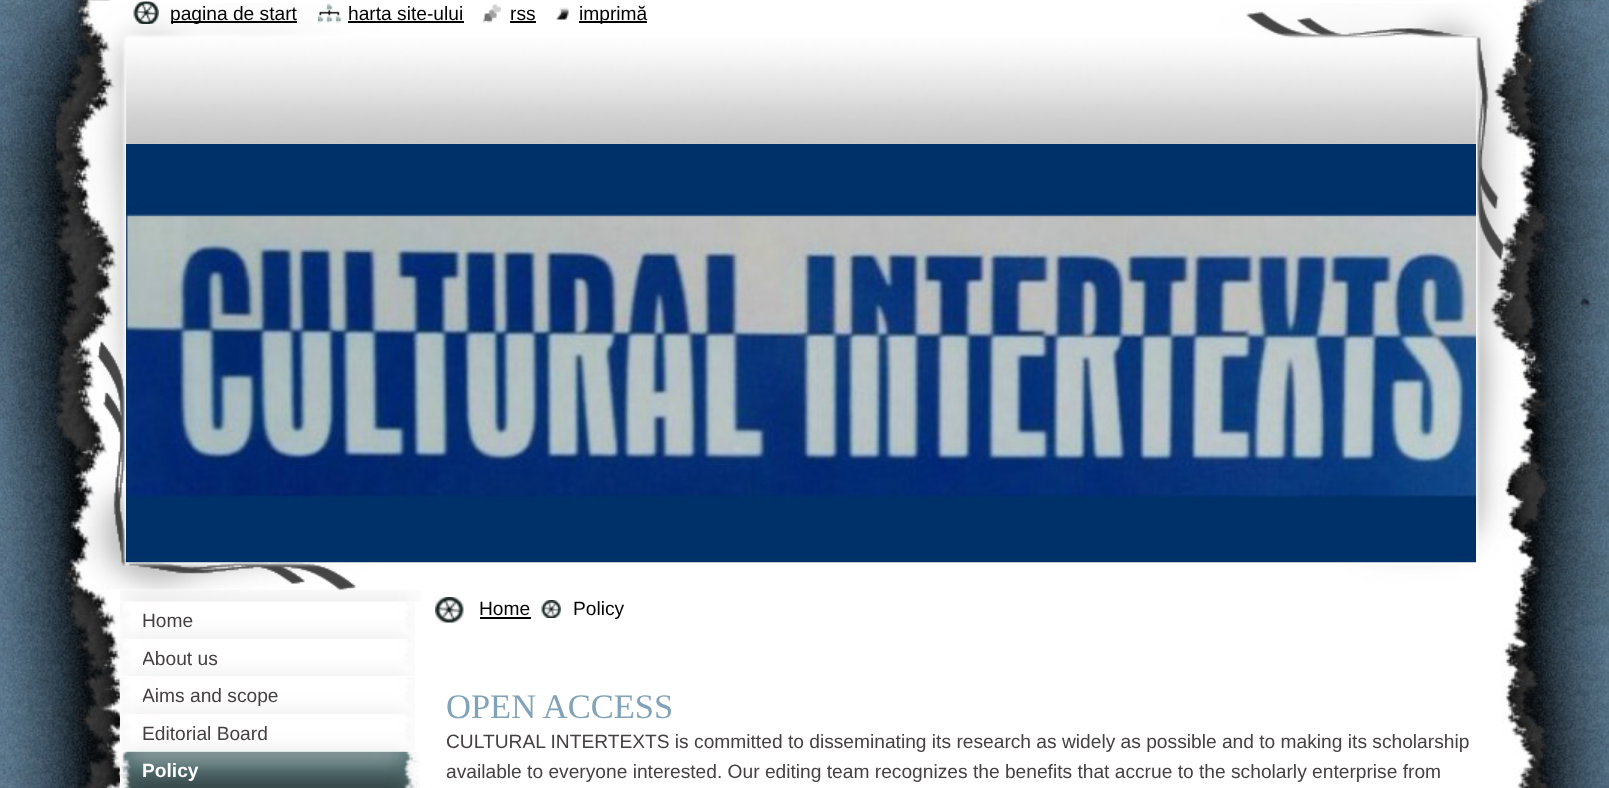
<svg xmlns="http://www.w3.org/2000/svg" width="1609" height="788">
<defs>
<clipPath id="clip1"><rect x="143" y="639" width="255" height="38"/></clipPath>
<clipPath id="clip2"><rect x="143" y="677" width="255" height="37"/></clipPath>
</defs>
<rect width="100%" height="100%" fill="#fff"/>
<image x="0" y="0" width="1609" height="788" href="media/1.png"/>
<image x="81" y="3" width="1435" height="587" href="media/2.png"/>
<image x="126" y="144" width="1350" height="419" href="media/3.png"/>
<image x="133" y="1" width="26" height="23" href="media/4.png"/>
<rect x="171" y="21" width="126" height="2" fill="#000"/>
<text x="170" y="20" style="font-family:Liberation Sans;font-size:19.2px;fill:#000">pagina de start</text>
<image x="318" y="3" width="24" height="20" href="media/5.png"/>
<text x="348" y="20" style="font-family:Liberation Sans;font-size:19.2px;fill:#000">harta site-ului</text>
<rect x="348" y="21" width="116" height="2" fill="#000"/>
<image x="483" y="4" width="18" height="19" href="media/6.png"/>
<text x="510" y="20" style="font-family:Liberation Sans;font-size:19.2px;fill:#000">rss</text>
<rect x="510" y="21" width="26" height="2" fill="#000"/>
<image x="556" y="7" width="13" height="13" href="media/7.png"/>
<rect x="579" y="21" width="68" height="2" fill="#000"/>
<text x="579" y="20" style="font-family:Liberation Sans;font-size:19.2px;fill:#000">imprimă</text>
<image x="120" y="590" width="301" height="12" href="media/8.png"/>
<image x="120" y="602" width="295" height="37" href="media/9.png"/>
<text x="142" y="627" style="font-family:Liberation Sans;font-size:19.2px;fill:#454143">Home</text>
<image x="120" y="639" width="295" height="37" href="media/10.png"/>
<g clip-path="url(#clip1)">
<text x="142" y="665" style="font-family:Liberation Sans;font-size:19.2px;fill:#454143">About us</text>
</g>
<image x="120" y="677" width="295" height="37" href="media/9.png"/>
<g clip-path="url(#clip2)">
<text x="142" y="702" style="font-family:Liberation Sans;font-size:19.2px;fill:#454143">Aims and scope</text>
</g>
<image x="120" y="714" width="295" height="37" href="media/10.png"/>
<text x="142" y="740" style="font-family:Liberation Sans;font-size:19.2px;fill:#454143">Editorial Board</text>
<image x="120" y="751" width="300" height="37" href="media/11.png"/>
<text x="142" y="777" style="font-family:Liberation Sans;font-size:19.2px;font-weight:bold;fill:#fff">Policy</text>
<image x="435" y="597" width="29" height="26" href="media/12.png"/>
<text x="479" y="615" style="font-family:Liberation Sans;font-size:19.2px;fill:#000">Home</text>
<rect x="480" y="617" width="51" height="2" fill="#000"/>
<image x="541" y="600" width="20" height="18" href="media/13.png"/>
<text x="573" y="615" style="font-family:Liberation Sans;font-size:19.2px;fill:#000">Policy</text>
<text x="446" y="718" style="font-family:Liberation Serif;font-size:34.5px;fill:#82a3b7">OPEN ACCESS</text>
<text x="446" y="748" style="font-family:Liberation Sans;font-size:19.2px;fill:#454143">CULTURAL INTERTEXTS is committed to disseminating its research as widely as possible and to making its scholarship</text>
<text x="446" y="778" style="font-family:Liberation Sans;font-size:19.2px;fill:#454143">available to everyone interested. Our editing team recognizes the benefits that accrue to the scholarly enterprise from</text>
</svg>
